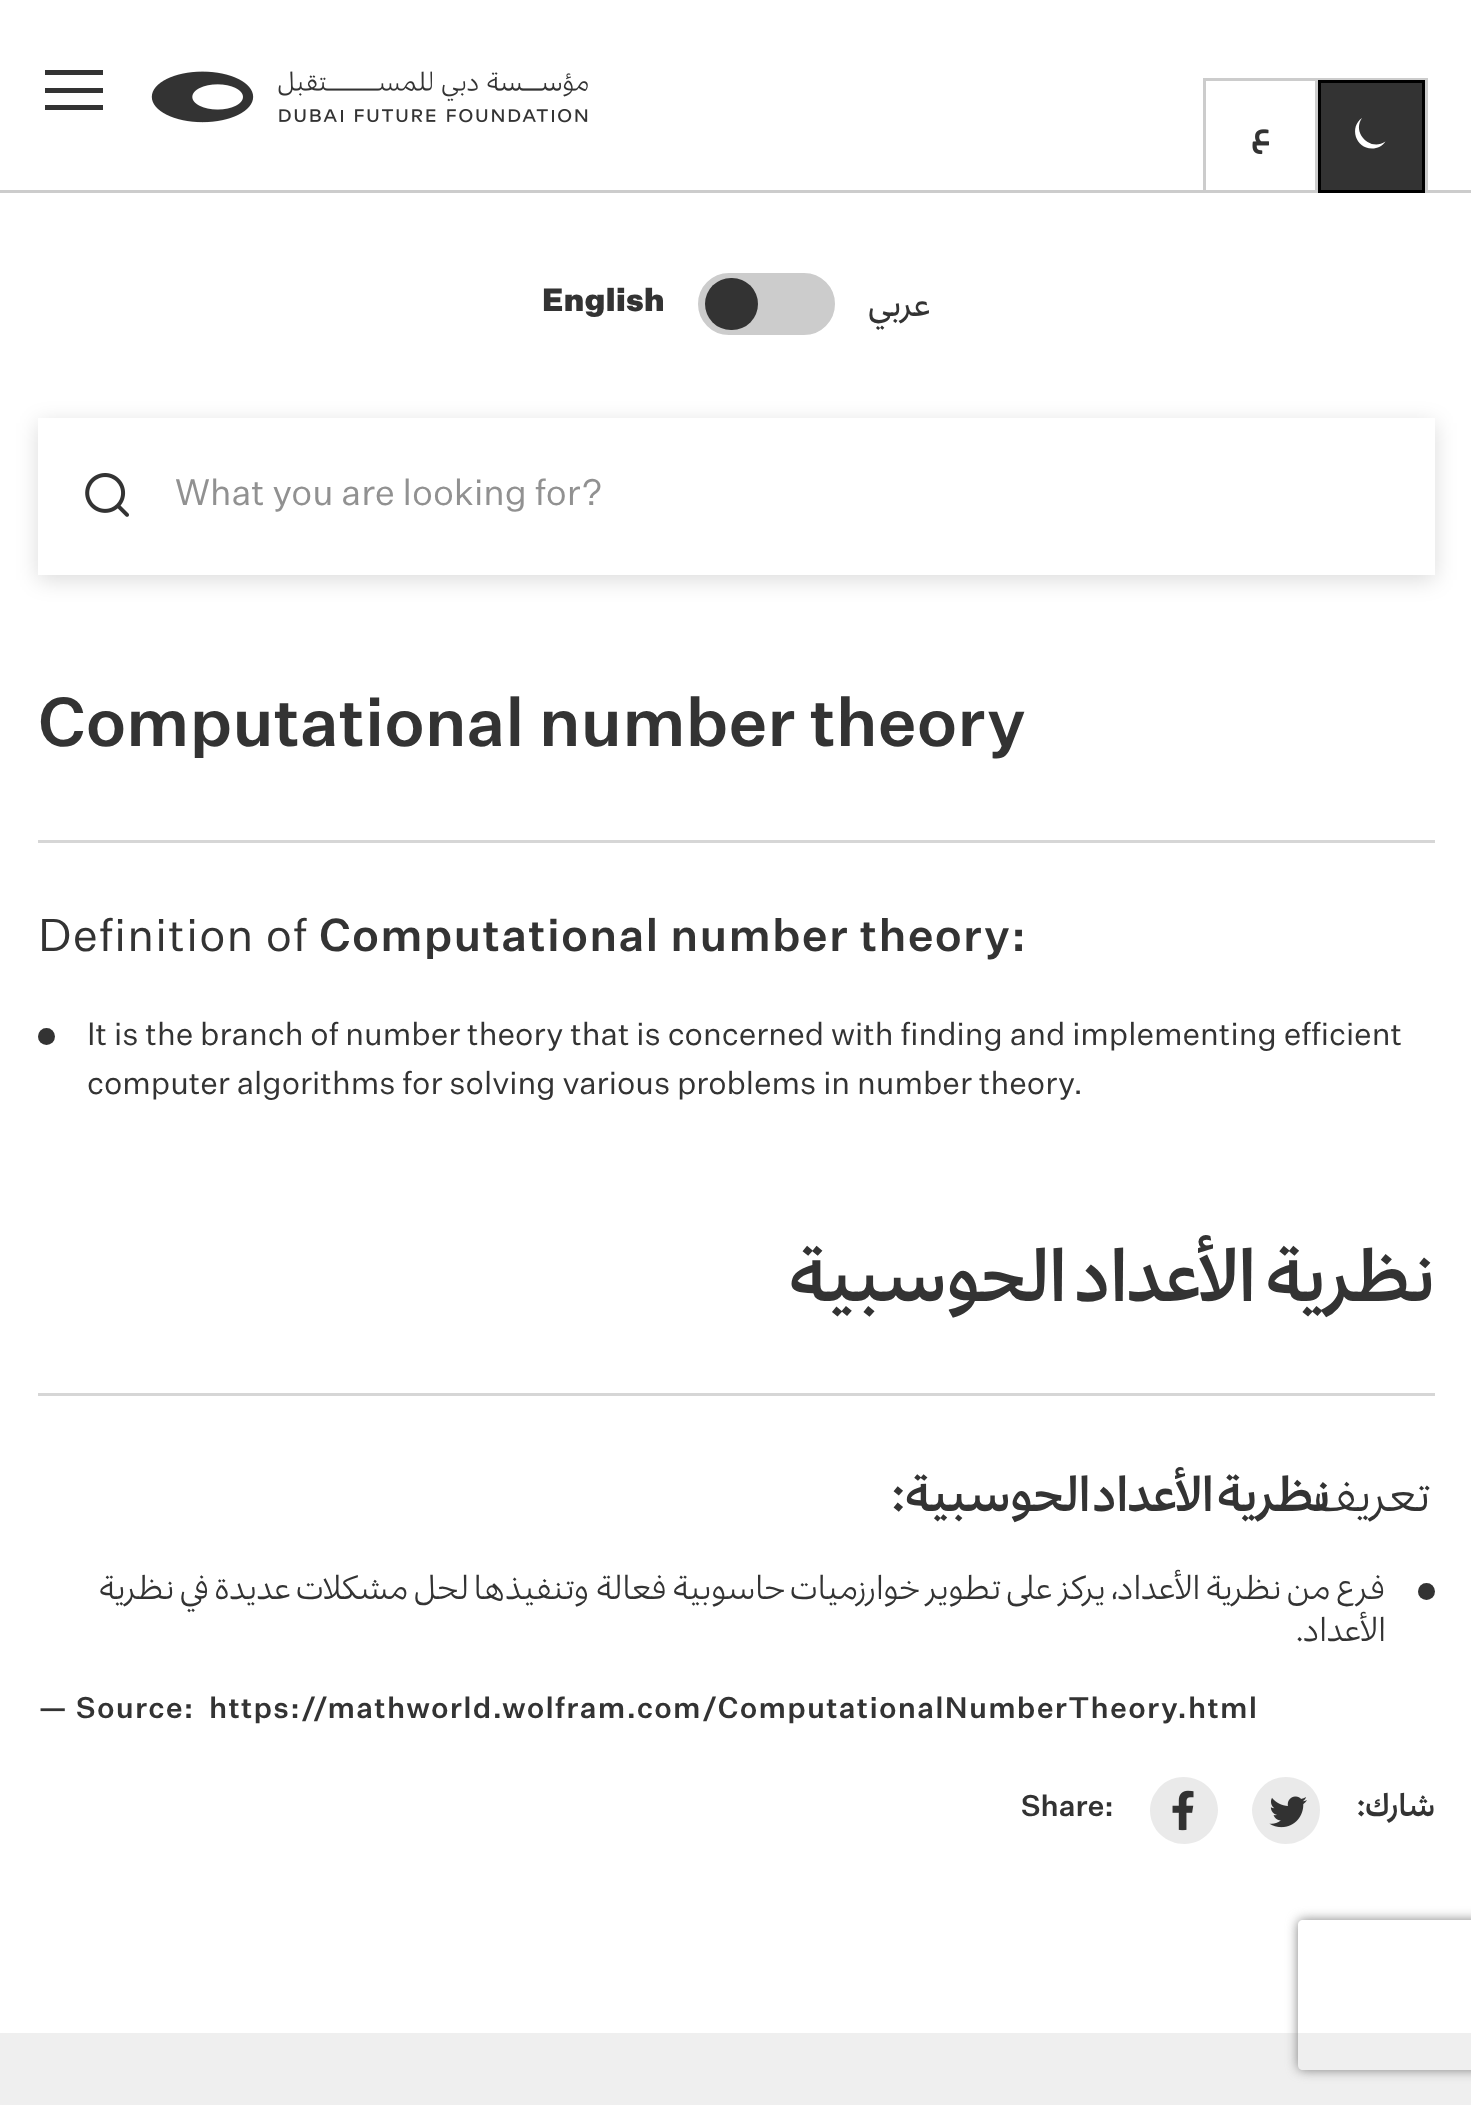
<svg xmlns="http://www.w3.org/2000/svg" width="1471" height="2105">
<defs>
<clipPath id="clip1"><path d="M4 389h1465v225h-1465zm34 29h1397v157h-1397z" clip-rule="evenodd"/></clipPath>
<clipPath id="clip2"><path d="M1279 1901h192v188h-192zm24 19h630c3 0 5 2 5 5v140c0 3-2 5-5 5h-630c-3 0-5-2-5-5v-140c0-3 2-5 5-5z" clip-rule="evenodd"/></clipPath>
</defs>
<rect width="100%" height="100%" fill="#fff"/>
<rect y="190" width="1471" height="3" fill="#ccc"/>
<rect x="45" y="70" width="58" height="5" fill="#333"/>
<rect x="45" y="88" width="58" height="5" fill="#333"/>
<rect x="45" y="105" width="58" height="5" fill="#333"/>
<image x="151" y="71" width="437" height="52" href="media/1.png"/>
<rect x="1203" y="78" width="112" height="3" fill="#ccc"/>
<rect x="1203" y="78" width="3" height="115" fill="#ccc"/>
<image x="1252" y="129" width="17" height="26" href="media/2.png"/>
<rect x="1315" y="78" width="113" height="2" fill="#ccc"/>
<rect x="1425" y="78" width="3" height="115" fill="#ccc"/>
<rect x="1315" y="78" width="3" height="115" fill="#ccc"/>
<rect x="1319.5" y="81.5" width="104" height="110" fill="#333" stroke="#000" stroke-width="3"/>
<path d="M1372 148.5c-16.5 0-23-21.5-10-30.5c-10.5 15 8.5 34 23.5 23.5c-3 4.5-8 7-13.5 7z" fill="#fff"/>
<g clip-path="url(#clip1)">
<rect x="38" y="423" width="1397" height="157" fill="#00000024" filter="blur(11px)"/>
</g>
<text x="542" y="311" style="font-family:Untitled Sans;font-size:31.5px;font-weight:900;fill:#333">English</text>
<rect x="696.5" y="271.5" width="140" height="65" rx="32.5" fill="#ccc" stroke="#fff" stroke-width="3"/>
<rect x="705" y="278" width="53" height="52" rx="26" fill="#333"/>
<text x="930" y="316" style="font-family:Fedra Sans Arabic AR;font-size:31.5px;font-weight:500;direction:rtl;fill:#333">عربي</text>
<image x="85" y="473" width="44" height="44" href="media/3.png"/>
<text x="175" y="505" style="font-family:Untitled Sans;font-size:36px;fill:#919191">What you are looking for?</text>
<text x="38" y="746" style="font-family:Untitled Sans;font-size:67.5px;font-weight:500;fill:#333">Computational number theory</text>
<rect x="38" y="840" width="1397" height="3" fill="#d6d6d6"/>
<text x="38" y="951" style="font-family:Untitled Sans;font-size:45px;letter-spacing:1.25px;fill:#333">Definition of</text>
<text x="319" y="951" style="font-family:Untitled Sans;font-size:45px;font-weight:500;letter-spacing:1.25px;fill:#333">Computational number theory:</text>
<circle cx="46.5" cy="1036.5" r="8.5" fill="#333"/>
<text x="87" y="1045" style="font-family:Untitled Sans;font-size:31.5px;fill:#333">It is the branch of number theory that is concerned with finding and implementing efficient</text>
<text x="87" y="1094" style="font-family:Untitled Sans;font-size:31.5px;fill:#333">computer algorithms for solving various problems in number theory.</text>
<text x="1435" y="1301" style="font-family:Fedra Sans Arabic AR;font-size:67.5px;font-weight:600;direction:rtl;fill:#333">نظرية الأعداد الحوسبية</text>
<rect x="38" y="1393" width="1397" height="3" fill="#d6d6d6"/>
<text x="1430" y="1511" style="font-family:Fedra Sans Arabic AR;font-size:45px;letter-spacing:1.25px;direction:rtl;fill:#333">تعريف</text>
<text x="1330" y="1511" word-spacing="-3" style="font-family:Fedra Sans Arabic AR;font-size:45px;font-weight:600;letter-spacing:1.25px;direction:rtl;fill:#333">نظرية الأعداد الحوسبية:</text>
<text x="1386" y="1599" style="font-family:Fedra Sans Arabic AR;font-size:31.5px;direction:rtl;fill:#333">فرع من نظرية الأعداد، يركز على تطوير خوارزميات حاسوبية فعالة وتنفيذها لحل مشكلات عديدة في نظرية</text>
<text x="1386" y="1641" style="font-family:Fedra Sans Arabic AR;font-size:31.5px;direction:rtl;fill:#333">الأعداد.</text>
<circle cx="1426.5" cy="1591.5" r="8.5" fill="#333"/>
<text x="38" y="1718" style="font-family:Untitled Sans;font-size:29.25px;font-weight:500;letter-spacing:1.25px;fill:#333">— Source:</text>
<text x="209" y="1718" style="font-family:Untitled Sans;font-size:29.25px;font-weight:500;letter-spacing:1.25px;fill:#333">https://mathworld.wolfram.com/ComputationalNumberTheory.html</text>
<text x="1021" y="1816" style="font-family:Untitled Sans;font-size:29.25px;font-weight:500;fill:#333">Share:</text>
<image x="1172" y="1790" width="22" height="41" href="media/4.png"/>
<path d="M1218 1810c0 7-3 14-6 19c-19 28-62 14-62-19c0-6 2-13 6-18c18-28 62-14 62 18z" fill="#3333331a"/>
<image x="1269" y="1796" width="38" height="32" href="media/5.png"/>
<path d="M1320 1810c0 33-43 47-62 19c-3-5-6-12-6-19c0-6 3-13 6-18c19-28 62-14 62 18z" fill="#3333331a"/>
<text x="1435" y="1816" style="font-family:Fedra Sans Arabic AR;font-size:29.25px;font-weight:600;direction:rtl;fill:#333">شارك:</text>
<rect y="2033" width="1471" height="72" fill="#efefef"/>
<g clip-path="url(#clip2)">
<rect x="1298" y="1920" width="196" height="150" rx="5" fill="#808080" filter="blur(6px)"/>
</g>
</svg>
